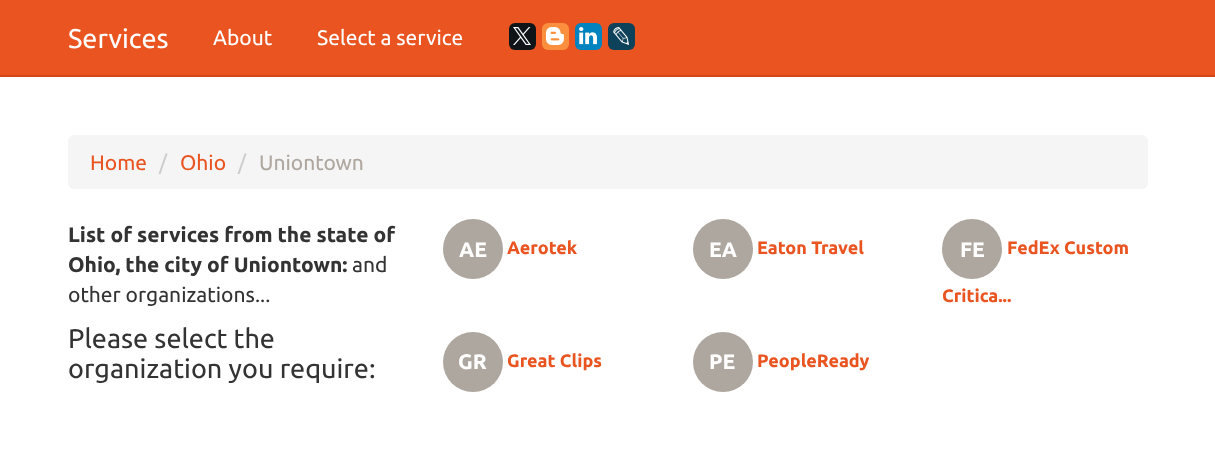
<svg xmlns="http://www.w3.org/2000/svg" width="1215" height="458">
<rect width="100%" height="100%" fill="#fff"/>
<rect width="1215" height="75" fill="#e95420"/>
<rect y="75" width="1215" height="2" fill="#d34615"/>
<text x="68" y="48" style="font-family:Ubuntu;font-size:27px;fill:#fff">Services</text>
<text x="213" y="45" style="font-family:Ubuntu;font-size:21px;fill:#fff">About</text>
<text x="317" y="45" style="font-family:Ubuntu;font-size:21px;fill:#fff">Select a service</text>
<rect x="509" y="23" width="27" height="27" rx="6" fill="#0f1419"/>
<image x="513" y="27" width="18" height="18" href="media/1.png"/>
<rect x="542" y="23" width="27" height="27" rx="6" fill="#fb8f3d"/>
<image x="546" y="27" width="18" height="18" href="media/2.png"/>
<rect x="575" y="23" width="27" height="27" rx="6" fill="#0083be"/>
<image x="579" y="27" width="18" height="18" href="media/3.png"/>
<rect x="608" y="23" width="27" height="27" rx="6" fill="#0d425a"/>
<image x="613" y="27" width="16" height="18" href="media/4.png"/>
<rect x="68" y="135" width="1080" height="54" rx="6" fill="#f5f5f5"/>
<text x="90" y="170" style="font-family:Ubuntu;font-size:21px;fill:#e95420">Home</text>
<text x="159" y="170" style="font-family:Ubuntu;font-size:21px;fill:#ccc">/</text>
<text x="180" y="170" style="font-family:Ubuntu;font-size:21px;fill:#e95420">Ohio</text>
<text x="238" y="170" style="font-family:Ubuntu;font-size:21px;fill:#ccc">/</text>
<text x="259" y="170" style="font-family:Ubuntu;font-size:21px;fill:#aea79f">Uniontown</text>
<text x="68" y="242" style="font-family:Ubuntu;font-size:21px;font-weight:bold;fill:#333">List of services from the state of</text>
<text x="68" y="272" style="font-family:Ubuntu;font-size:21px;font-weight:bold;fill:#333">Ohio, the city of Uniontown:</text>
<text x="352" y="272" style="font-family:Ubuntu;font-size:21px;fill:#333">and</text>
<text x="68" y="302" style="font-family:Ubuntu;font-size:21px;fill:#333">other organizations...</text>
<text x="68" y="348" style="font-family:Ubuntu;font-size:27px;fill:#333">Please select the</text>
<text x="68" y="378" style="font-family:Ubuntu;font-size:27px;fill:#333">organization you require:</text>
<circle cx="473" cy="249" r="30" fill="#aea79f"/>
<text x="459" y="257" style="font-family:Ubuntu;font-size:21px;font-weight:bold;fill:#fff">AE</text>
<text x="507" y="254" style="font-family:Ubuntu;font-size:18px;font-weight:bold;fill:#e95420">Aerotek</text>
<circle cx="723" cy="249" r="30" fill="#aea79f"/>
<text x="709" y="257" style="font-family:Ubuntu;font-size:21px;font-weight:bold;fill:#fff">EA</text>
<text x="757" y="254" style="font-family:Ubuntu;font-size:18px;font-weight:bold;fill:#e95420">Eaton Travel</text>
<circle cx="972" cy="249" r="30" fill="#aea79f"/>
<text x="960" y="257" style="font-family:Ubuntu;font-size:21px;font-weight:bold;fill:#fff">FE</text>
<text x="1007" y="254" style="font-family:Ubuntu;font-size:18px;font-weight:bold;fill:#e95420">FedEx Custom</text>
<text x="942" y="302" style="font-family:Ubuntu;font-size:18px;font-weight:bold;fill:#e95420">Critica...</text>
<circle cx="473" cy="362" r="30" fill="#aea79f"/>
<text x="458" y="369" style="font-family:Ubuntu;font-size:21px;font-weight:bold;fill:#fff">GR</text>
<text x="507" y="367" style="font-family:Ubuntu;font-size:18px;font-weight:bold;fill:#e95420">Great Clips</text>
<circle cx="723" cy="362" r="30" fill="#aea79f"/>
<text x="709" y="369" style="font-family:Ubuntu;font-size:21px;font-weight:bold;fill:#fff">PE</text>
<text x="757" y="367" style="font-family:Ubuntu;font-size:18px;font-weight:bold;fill:#e95420">PeopleReady</text>
</svg>
